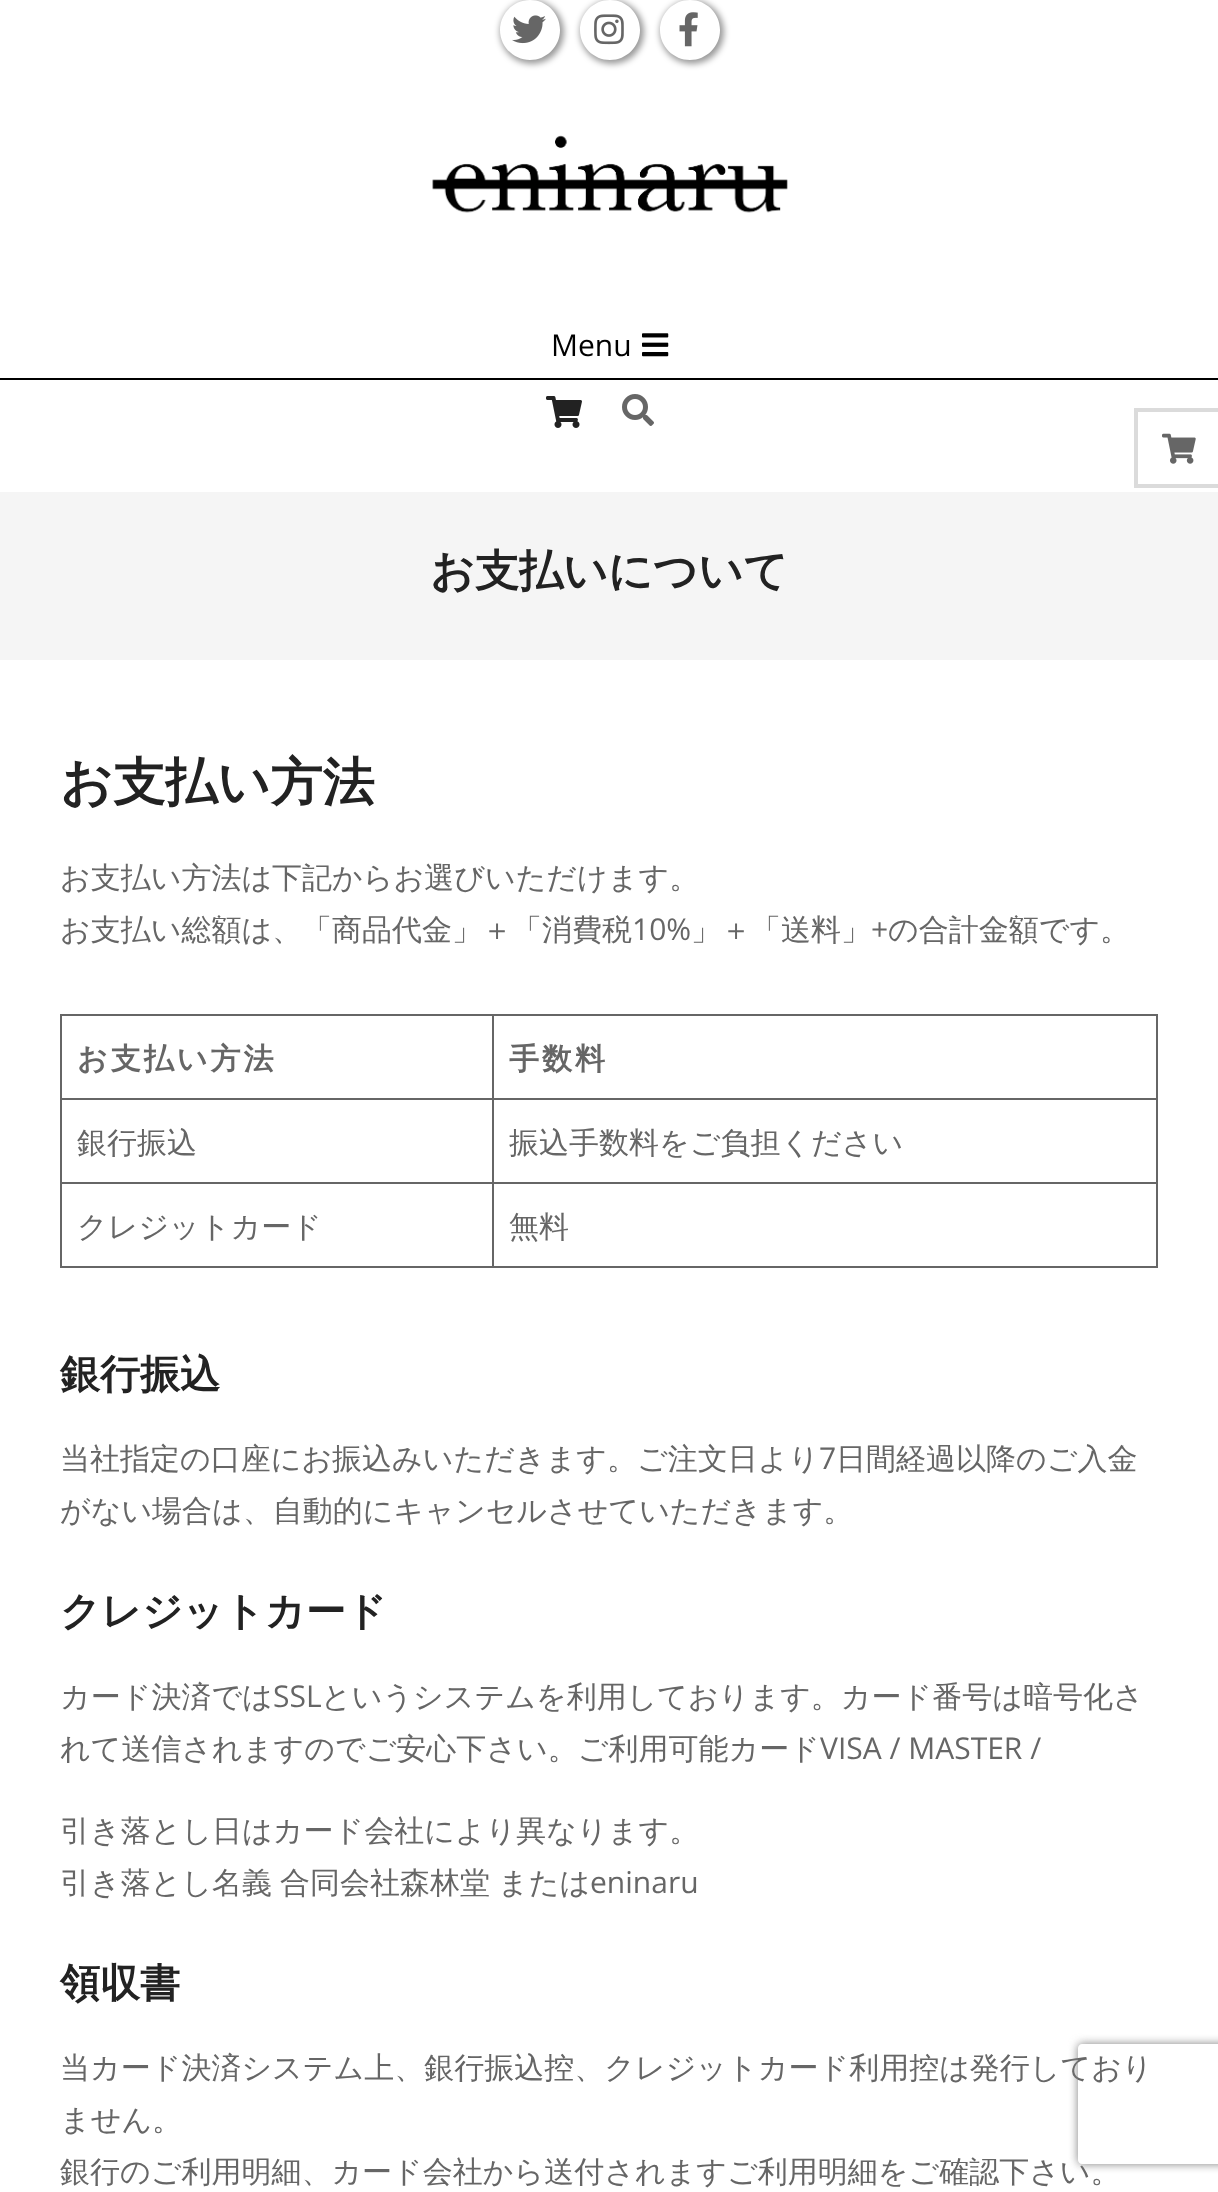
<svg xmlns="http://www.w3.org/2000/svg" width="1218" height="2192">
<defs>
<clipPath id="clip1"><path d="M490 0h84v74h-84zm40 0c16.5 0 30 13.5 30 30c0 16.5-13.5 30-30 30c-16.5 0-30-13.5-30-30c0-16.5 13.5-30 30-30z" clip-rule="evenodd"/></clipPath>
<clipPath id="clip2"><path d="M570 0h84v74h-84zm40 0c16.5 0 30 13.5 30 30c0 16.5-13.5 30-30 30c-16.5 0-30-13.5-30-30c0-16.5 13.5-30 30-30z" clip-rule="evenodd"/></clipPath>
<clipPath id="clip3"><path d="M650 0h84v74h-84zm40 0c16.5 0 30 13.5 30 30c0 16.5-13.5 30-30 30c-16.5 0-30-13.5-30-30c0-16.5 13.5-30 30-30z" clip-rule="evenodd"/></clipPath>
<clipPath id="clip4"><path d="M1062 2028h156v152h-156zm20 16h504c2 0 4 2 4 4v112c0 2-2 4-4 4h-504c-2 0-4-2-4-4v-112c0-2 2-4 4-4z" clip-rule="evenodd"/></clipPath>
</defs>
<rect width="100%" height="100%" fill="#fff"/>
<g clip-path="url(#clip1)">
<rect x="500" width="64" height="64" rx="32" fill="#00000066" filter="blur(3px)"/>
</g>
<image x="512" y="15" width="34" height="29" href="media/1.png"/>
<g clip-path="url(#clip2)">
<rect x="580" width="64" height="64" rx="32" fill="#00000066" filter="blur(3px)"/>
</g>
<image x="594" y="14" width="30" height="31" href="media/2.png"/>
<g clip-path="url(#clip3)">
<rect x="660" width="64" height="64" rx="32" fill="#00000066" filter="blur(3px)"/>
</g>
<image x="679" y="12" width="19" height="35" href="media/3.png"/>
<image x="432" y="135" width="356" height="78" href="media/4.png"/>
<rect y="378" width="1218" height="2" fill="#000"/>
<text x="551" y="356" style="font-family:Open Sans;font-size:30px;fill:#000">Menu</text>
<image x="642" y="333" width="27" height="24" href="media/5.png"/>
<image x="546" y="396" width="36" height="32" href="media/6.png"/>
<image x="622" y="394" width="32" height="32" href="media/7.png"/>
<rect y="492" width="1218" height="168" fill="#f5f5f5"/>
<text x="430" y="586" style="font-family:WenQuanYi Zen Hei;font-size:44px;font-weight:bold;fill:#222">お支払いについて</text>
<text x="60" y="800" style="font-family:WenQuanYi Zen Hei;font-size:52px;font-weight:bold;fill:#222">お支払い方法</text>
<text x="60" y="888" style="font-family:WenQuanYi Zen Hei;font-size:30px;font-weight:500;fill:#666">お支払い方法は下記からお選びいただけます。</text>
<text x="60" y="940" style="font-family:WenQuanYi Zen Hei;font-size:30px;font-weight:500;fill:#666">お支払い総額は、「商品代金」＋「消費税</text>
<text x="632" y="940" style="font-family:Open Sans;font-size:30px;fill:#666">10%</text>
<text x="691" y="940" style="font-family:WenQuanYi Zen Hei;font-size:30px;font-weight:500;fill:#666">」＋「送料」</text>
<text x="871" y="940" style="font-family:Open Sans;font-size:30px;fill:#666">+</text>
<text x="888" y="940" style="font-family:WenQuanYi Zen Hei;font-size:30px;font-weight:500;fill:#666">の合計金額です。</text>
<rect x="492" y="1014" width="666" height="2" fill="#666"/>
<rect x="492" y="1098" width="666" height="2" fill="#666"/>
<rect x="492" y="1182" width="666" height="2" fill="#666"/>
<rect x="1156" y="1182" width="2" height="86" fill="#666"/>
<rect x="492" y="1266" width="666" height="2" fill="#666"/>
<rect x="492" y="1182" width="2" height="86" fill="#666"/>
<rect x="60" y="1182" width="434" height="2" fill="#666"/>
<rect x="492" y="1098" width="2" height="86" fill="#666"/>
<rect x="60" y="1098" width="434" height="2" fill="#666"/>
<rect x="492" y="1014" width="2" height="86" fill="#666"/>
<rect x="60" y="1014" width="434" height="2" fill="#666"/>
<rect x="60" y="1266" width="434" height="2" fill="#666"/>
<rect x="60" y="1182" width="2" height="86" fill="#666"/>
<rect x="60" y="1098" width="2" height="86" fill="#666"/>
<rect x="60" y="1014" width="2" height="86" fill="#666"/>
<text x="77" y="1069" style="font-family:WenQuanYi Zen Hei;font-size:30px;font-weight:bold;letter-spacing:3px;fill:#666">お支払い方法</text>
<rect x="1156" y="1098" width="2" height="86" fill="#666"/>
<rect x="1156" y="1014" width="2" height="86" fill="#666"/>
<text x="509" y="1069" style="font-family:WenQuanYi Zen Hei;font-size:30px;font-weight:bold;letter-spacing:3px;fill:#666">手数料</text>
<text x="77" y="1153" style="font-family:WenQuanYi Zen Hei;font-size:30px;font-weight:500;fill:#666">銀行振込</text>
<text x="509" y="1153" style="font-family:WenQuanYi Zen Hei;font-size:30px;font-weight:500;fill:#666">振込手数料をご負担ください</text>
<text x="77" y="1237" style="font-family:WenQuanYi Zen Hei;font-size:30px;font-weight:500;fill:#666">クレジットカード</text>
<text x="509" y="1237" style="font-family:WenQuanYi Zen Hei;font-size:30px;font-weight:500;fill:#666">無料</text>
<text x="60" y="1388" style="font-family:WenQuanYi Zen Hei;font-size:40px;font-weight:bold;fill:#222">銀行振込</text>
<text x="60" y="1469" style="font-family:WenQuanYi Zen Hei;font-size:30px;font-weight:500;fill:#666">当社指定の口座にお振込みいただきます。ご注文日より</text>
<text x="819" y="1469" style="font-family:Open Sans;font-size:30px;fill:#666">7</text>
<text x="836" y="1469" style="font-family:WenQuanYi Zen Hei;font-size:30px;font-weight:500;fill:#666">日間経過以降のご入金</text>
<text x="60" y="1521" style="font-family:WenQuanYi Zen Hei;font-size:30px;font-weight:500;fill:#666">がない場合は、自動的にキャンセルさせていただきます。</text>
<text x="60" y="1625" style="font-family:WenQuanYi Zen Hei;font-size:40px;font-weight:bold;fill:#222">クレジットカード</text>
<text x="60" y="1707" style="font-family:WenQuanYi Zen Hei;font-size:30px;font-weight:500;fill:#666">カード決済では</text>
<text x="273" y="1707" style="font-family:Open Sans;font-size:30px;fill:#666">SSL</text>
<text x="321" y="1707" style="font-family:WenQuanYi Zen Hei;font-size:30px;font-weight:500;fill:#666">というシステムを利用しております。カード番号は暗号化さ</text>
<text x="60" y="1759" style="font-family:WenQuanYi Zen Hei;font-size:30px;font-weight:500;fill:#666">れて送信されますのでご安心下さい。ご利用可能カード</text>
<text x="820" y="1759" style="font-family:Open Sans;font-size:30px;fill:#666">VISA / MASTER /</text>
<text x="60" y="1841" style="font-family:WenQuanYi Zen Hei;font-size:30px;font-weight:500;fill:#666">引き落とし日はカード会社により異なります。</text>
<text x="60" y="1893" word-spacing="-1" style="font-family:WenQuanYi Zen Hei;font-size:30px;font-weight:500;fill:#666">引き落とし名義 合同会社森林堂 または</text>
<text x="590" y="1893" style="font-family:Open Sans;font-size:30px;fill:#666">eninaru</text>
<text x="60" y="1997" style="font-family:WenQuanYi Zen Hei;font-size:40px;font-weight:bold;fill:#222">領収書</text>
<text x="60" y="2078" style="font-family:WenQuanYi Zen Hei;font-size:30px;font-weight:500;fill:#666">当カード決済システム上、銀行振込控、クレジットカード利用控は発行しており</text>
<text x="60" y="2130" style="font-family:WenQuanYi Zen Hei;font-size:30px;font-weight:500;fill:#666">ません。</text>
<text x="60" y="2182" style="font-family:WenQuanYi Zen Hei;font-size:30px;font-weight:500;fill:#666">銀行のご利用明細、カード会社から送付されますご利用明細をご確認下さい。</text>
<path d="M1134 408h84v4h-80z" fill="#dbdbdb"/>
<path d="M1218 488h-84l4-4h80z" fill="#dbdbdb"/>
<path d="M1134 488v-80l4 4v72z" fill="#00000024"/>
<image x="1162" y="433" width="34" height="31" href="media/8.png"/>
<g clip-path="url(#clip4)">
<rect x="1078" y="2044" width="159" height="120" rx="4" fill="#808080" filter="blur(5px)"/>
</g>
</svg>
